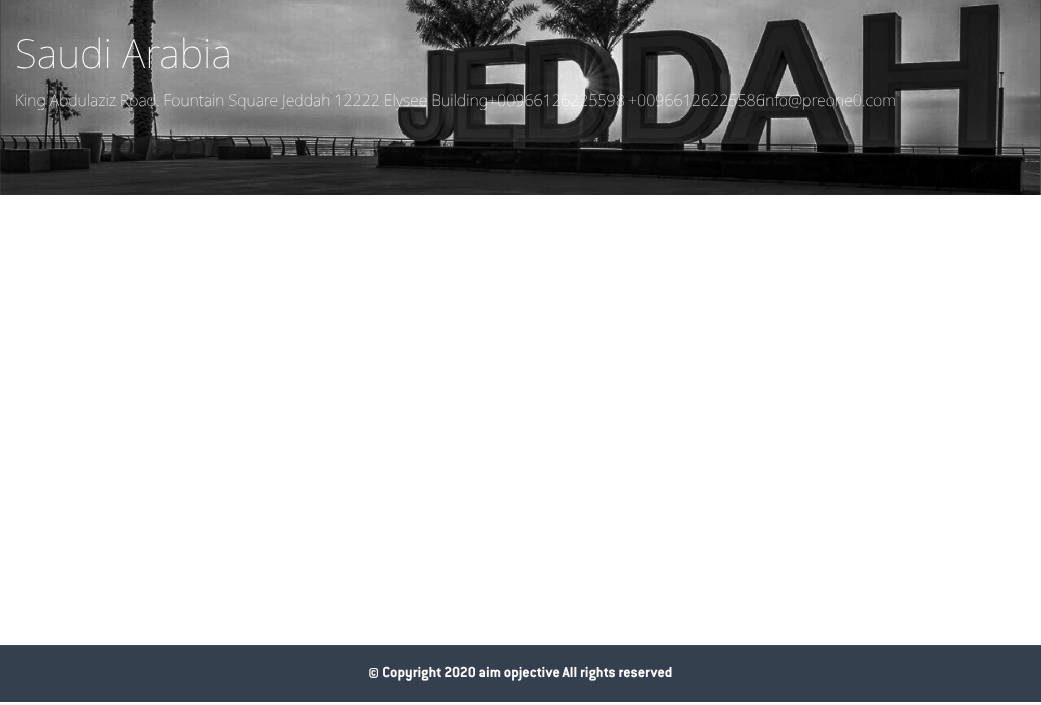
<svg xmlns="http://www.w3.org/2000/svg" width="1041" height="705">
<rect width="100%" height="100%" fill="#fff"/>
<image x="0" y="0" width="1041" height="195" href="media/1.png"/>
<text x="15" y="68" style="font-family:Noto Sans;font-size:40px;font-weight:100;fill:#fff">Saudi Arabia</text>
<text x="15" y="106" word-spacing="-0.25" style="font-family:Noto Sans;font-size:16px;font-weight:100;fill:#fff">King Abdulaziz Road. Fountain Square Jeddah 12222 Elysee Building</text>
<text x="488" y="106" word-spacing="-1" style="font-family:Noto Sans;font-size:16px;font-weight:100;fill:#fff">+00966126225598 +00966126225586</text>
<text x="762" y="106" style="font-family:Noto Sans;font-size:16px;font-weight:100;fill:#fff">info@preone0.com</text>
<rect y="646" width="1041" height="56" fill="#35404e"/>
<rect y="645" width="1041" height="1" fill="#424c59"/>
<text x="368" y="677" style="font-family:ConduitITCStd;font-size:16px;font-weight:bold;fill:#fff">© Copyright 2020 aim opjective All rights reserved</text>
<rect y="704" width="1041" height="1" fill="#f9f9f9"/>
</svg>
